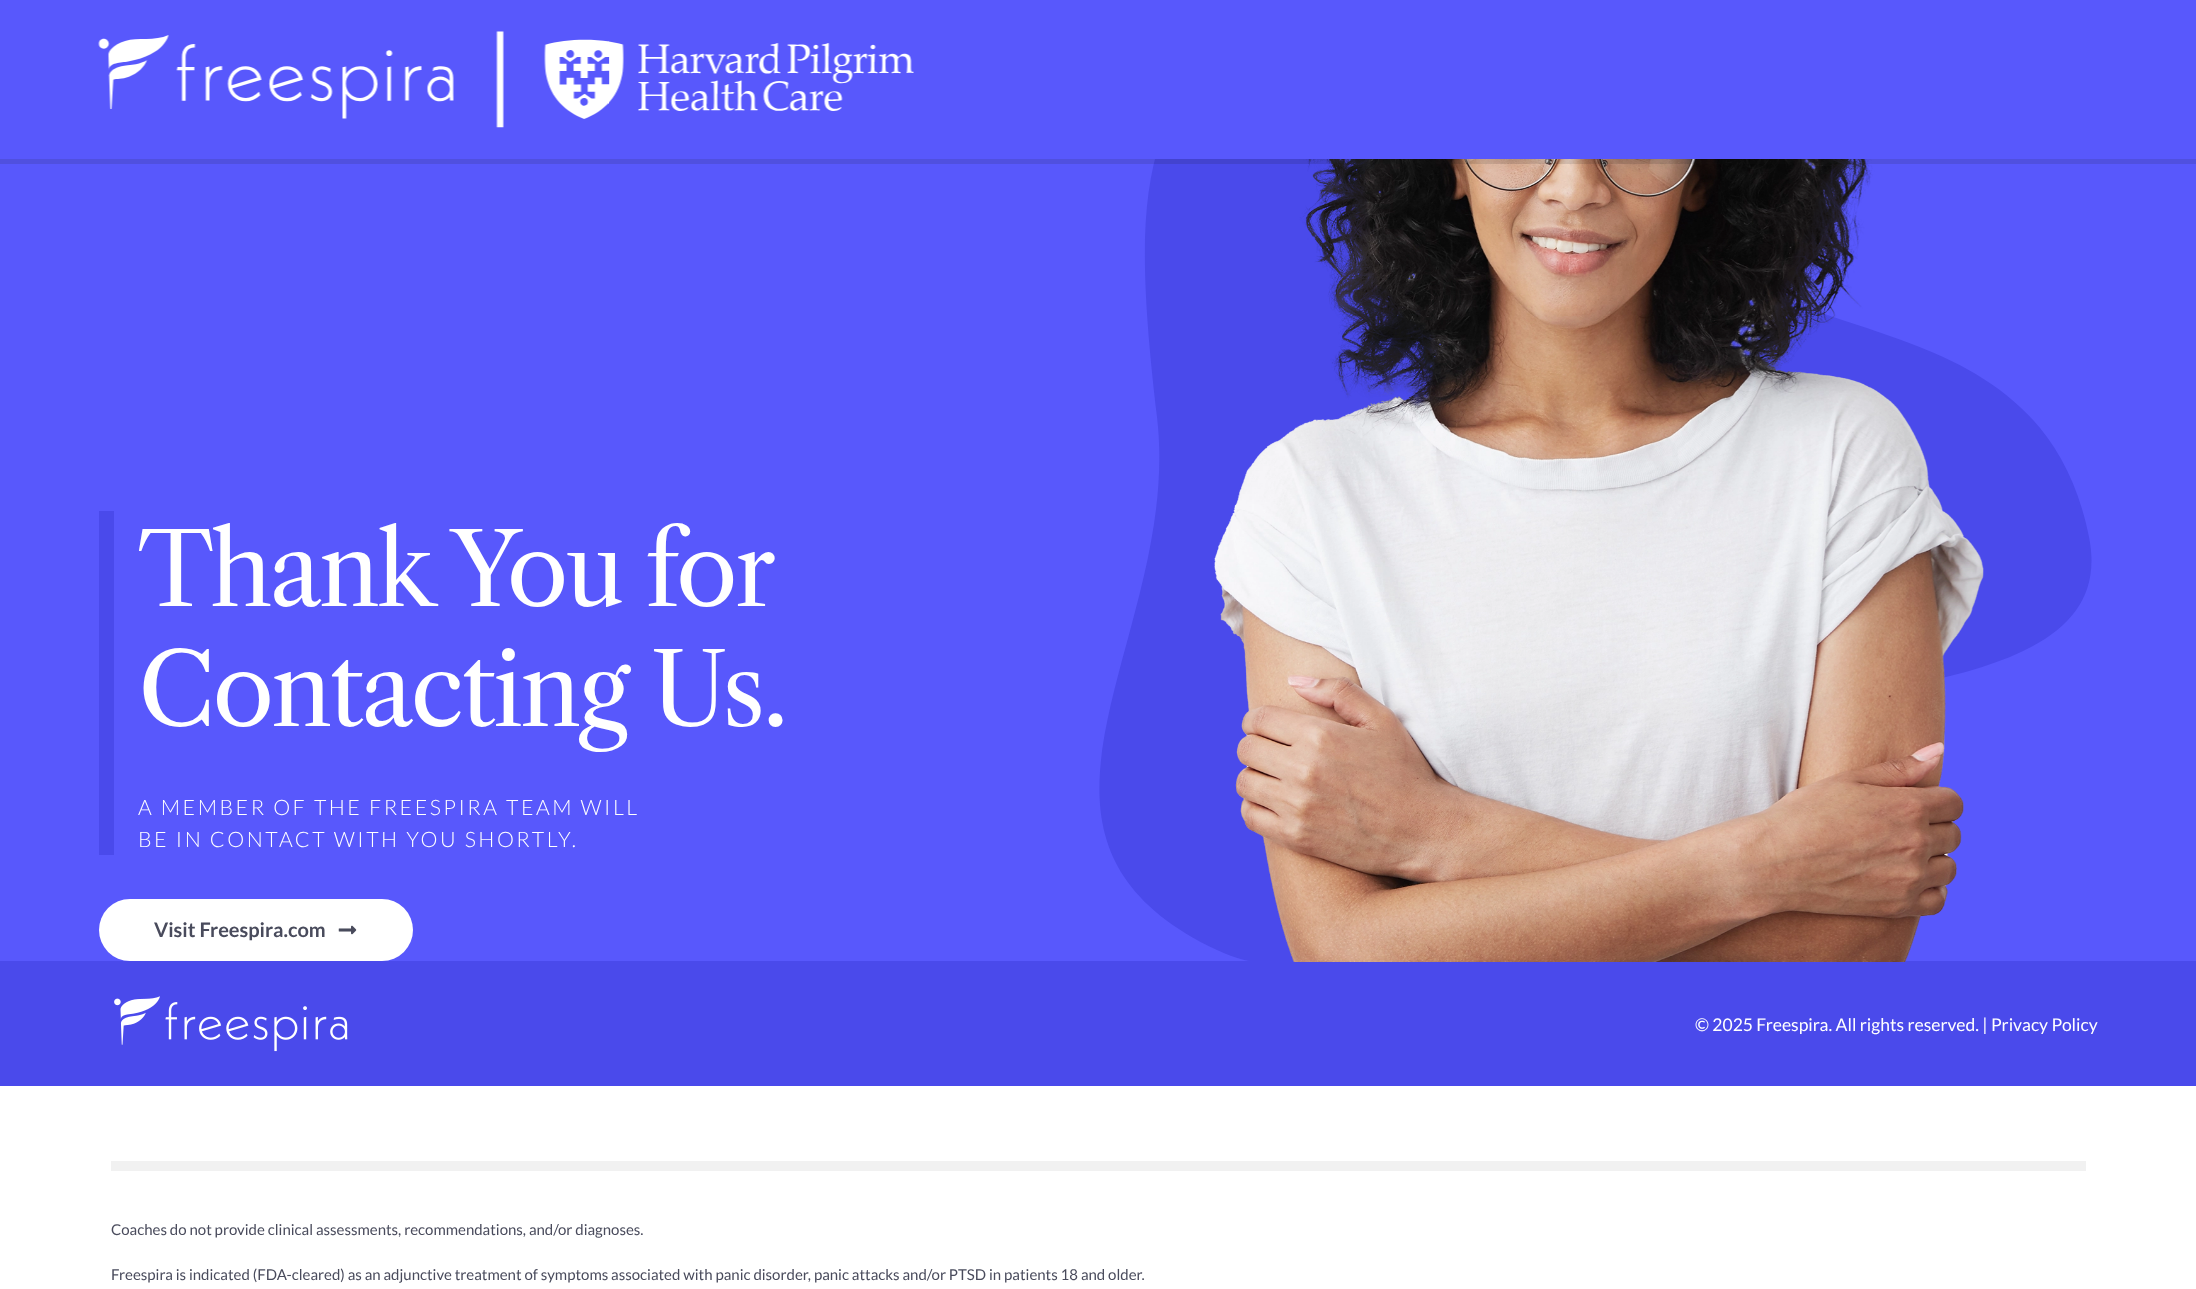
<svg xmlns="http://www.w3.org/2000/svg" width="2196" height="1289">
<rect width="100%" height="100%" fill="#fff"/>
<rect y="159" width="2196" height="802" fill="#5858fc"/>
<path d="M1214 42c55-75 199-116 295 7c88 113 137 141 216 214c94 85 320 54 364 274c38 190-370 126-505 254c0 0-206 235-367 159c-240-114-34-312-60-533c-24-206-16-276 57-375z" fill="#4a4aeb"/>
<rect y="961" width="2196" height="125" fill="#4a4aeb"/>
<image x="1214" y="159" width="770" height="803" href="media/3.png"/>
<rect y="159" width="2196" height="5" fill="#22222208"/>
<rect y="159" width="2196" height="5" fill="#2222221a"/>
<rect width="2196" height="159" fill="#5858fc"/>
<image x="98" y="31" width="816" height="97" href="media/1.png"/>
<rect x="99" y="511" width="15" height="344" fill="#4a4aeb"/>
<text x="138" y="606" word-spacing="-1" style="font-family:Libre Caslon Text;font-size:100px;letter-spacing:-3px;fill:#fff">Thank You for</text>
<text x="138" y="726" style="font-family:Libre Caslon Text;font-size:100px;letter-spacing:-3px;fill:#fff">Contacting Us.</text>
<text x="138" y="815" style="font-family:Lato;font-size:21.25px;font-weight:300;letter-spacing:2.5px;fill:#fff">A MEMBER OF THE FREESPIRA TEAM WILL</text>
<text x="138" y="847" style="font-family:Lato;font-size:21.25px;font-weight:300;letter-spacing:2.5px;fill:#fff">BE IN CONTACT WITH YOU SHORTLY.</text>
<rect x="99" y="899" width="314" height="62" rx="31" fill="#fff"/>
<text x="154" y="937" style="font-family:Lato;font-size:20px;font-weight:bold;fill:#494b5c">Visit Freespira.com</text>
<image x="338" y="925" width="19" height="10" href="media/2.png"/>
<image x="114" y="996" width="234" height="56" href="media/4.png"/>
<text x="1695" y="1031" style="font-family:Lato;font-size:17.5px;fill:#fff">© 2025 Freespira. All rights reserved. | Privacy Policy</text>
<rect x="111" y="1161" width="1975" height="10" fill="#f1f1f1"/>
<text x="111" y="1235" style="font-family:Lato;font-size:15px;fill:#494b5c">Coaches do not provide clinical assessments, recommendations, and/or diagnoses.</text>
<text x="111" y="1280" style="font-family:Lato;font-size:15px;fill:#494b5c">Freespira is indicated (FDA-cleared) as an adjunctive treatment of symptoms associated with panic disorder, panic attacks and/or PTSD in patients 18 and older.</text>
</svg>
